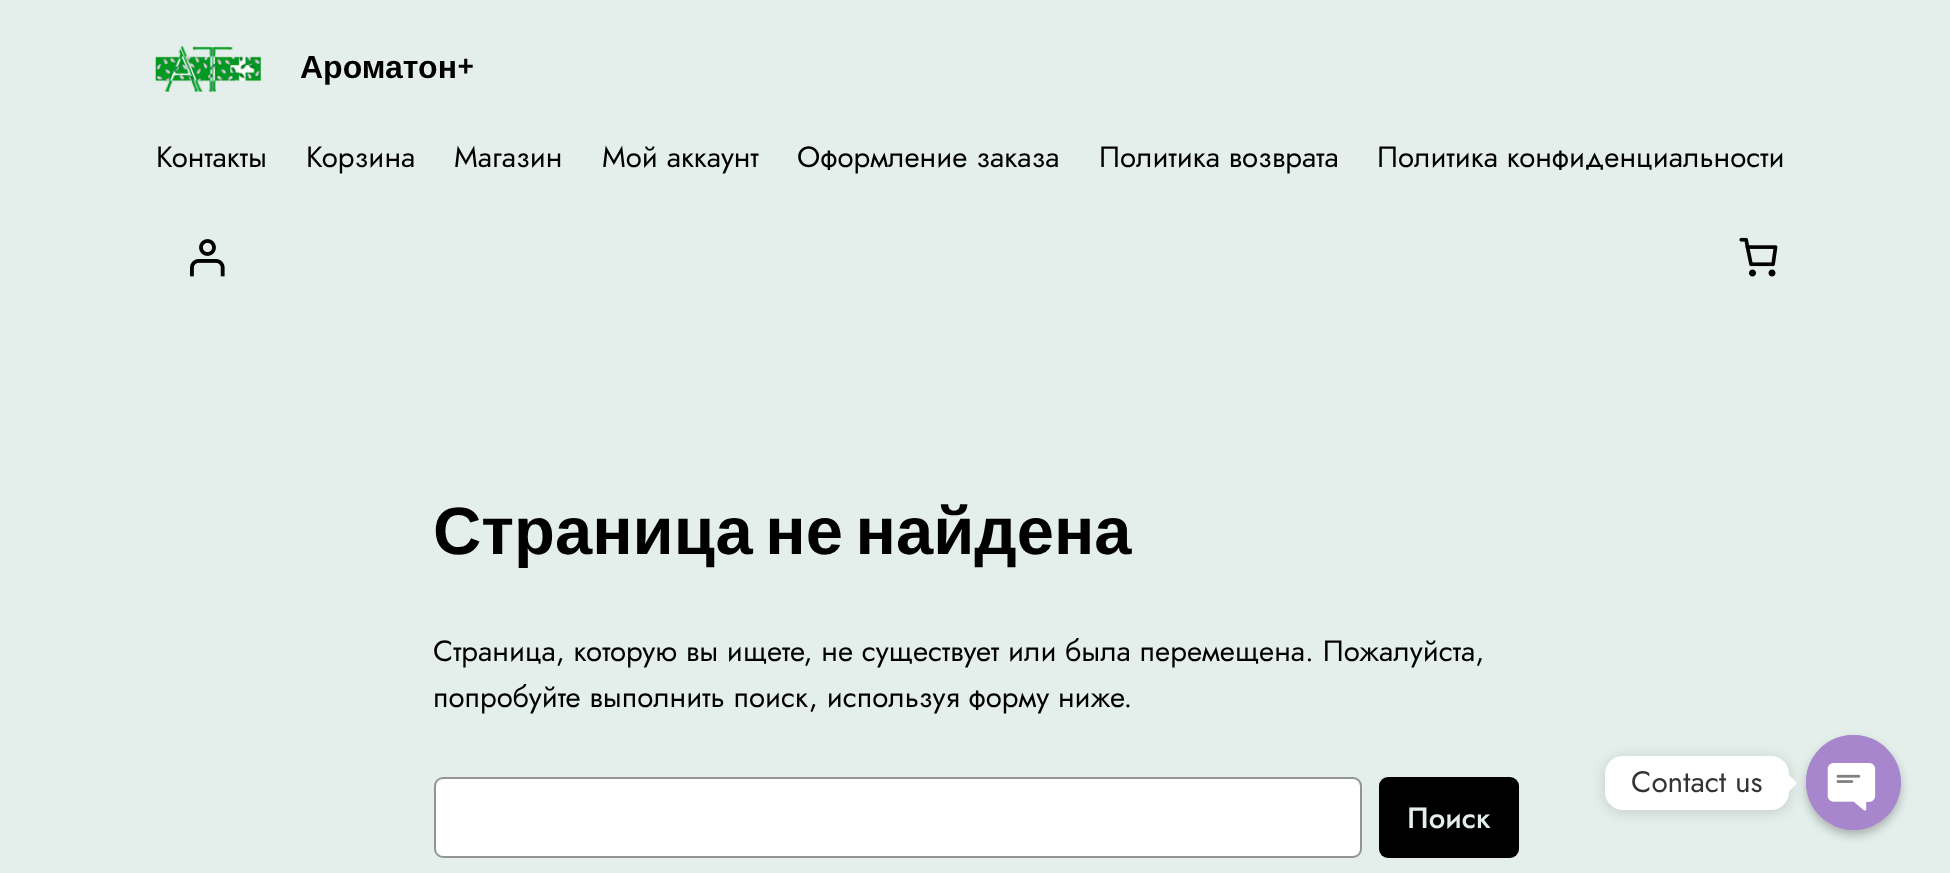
<svg xmlns="http://www.w3.org/2000/svg" width="1950" height="873">
<rect width="100%" height="100%" fill="#e4efeb"/>
<image x="155" y="46" width="106" height="46" href="media/1.png"/>
<text x="300" y="78" style="font-family:Liberation Sans;font-size:32px;font-weight:bold;fill:#000">Ароматон</text>
<text x="457" y="78" style="font-family:Instrument Sans;font-size:32px;font-weight:600;fill:#000">+</text>
<text x="156" y="167" style="font-family:Jost;font-size:29.4px;fill:#000">Контакты</text>
<text x="306" y="167" style="font-family:Jost;font-size:29.4px;fill:#000">Корзина</text>
<text x="454" y="167" style="font-family:Jost;font-size:29.4px;fill:#000">Магазин</text>
<text x="602" y="167" style="font-family:Jost;font-size:29.4px;fill:#000">Мой аккаунт</text>
<text x="797" y="167" style="font-family:Jost;font-size:29.4px;fill:#000">Оформление заказа</text>
<text x="1099" y="167" style="font-family:Jost;font-size:29.4px;fill:#000">Политика возврата</text>
<text x="1377" y="167" style="font-family:Jost;font-size:29.4px;fill:#000">Политика конфиденциальности</text>
<image x="190" y="239" width="35" height="38" href="media/2.png"/>
<image x="1739" y="237" width="39" height="40" href="media/3.png"/>
<text x="433" y="554" word-spacing="-6" style="font-family:Liberation Sans;font-size:66.9px;font-weight:bold;fill:#000">Страница не найдена</text>
<text x="433" y="661" word-spacing="-0.1" style="font-family:Jost;font-size:29.4px;fill:#000">Страница, которую вы ищете, не существует или была перемещена. Пожалуйста,</text>
<text x="433" y="707" style="font-family:Jost;font-size:29.4px;fill:#000">попробуйте выполнить поиск, используя форму ниже.</text>
<rect x="435" y="778" width="926" height="79" rx="8" fill="#fff" stroke="#949494" stroke-width="2"/>
<rect x="1379" y="777" width="140" height="81" rx="9" fill="#000"/>
<text x="1407" y="828" style="font-family:Jost;font-size:29.4px;font-weight:500;fill:#e4efeb">Поиск</text>
<rect x="1605" y="758" width="184" height="54" rx="18" fill="#00000026" filter="blur(7px)"/>
<rect x="1605" y="756" width="184" height="54" rx="18" fill="#fff"/>
<text x="1631" y="792" style="font-family:Jost;font-size:29.75px;fill:#333">Contact us</text>
<path d="M1788.5 792v-17.5l8.5 8.5z" fill="#fff"/>
<rect x="1806" y="740" width="95" height="95" rx="47.5" fill="#00000040" filter="blur(5px)"/>
<circle cx="1853.5" cy="782.5" r="47.5" fill="#a886cd"/>
<image x="1806" y="735" width="70" height="76" href="media/4.png"/>
</svg>
